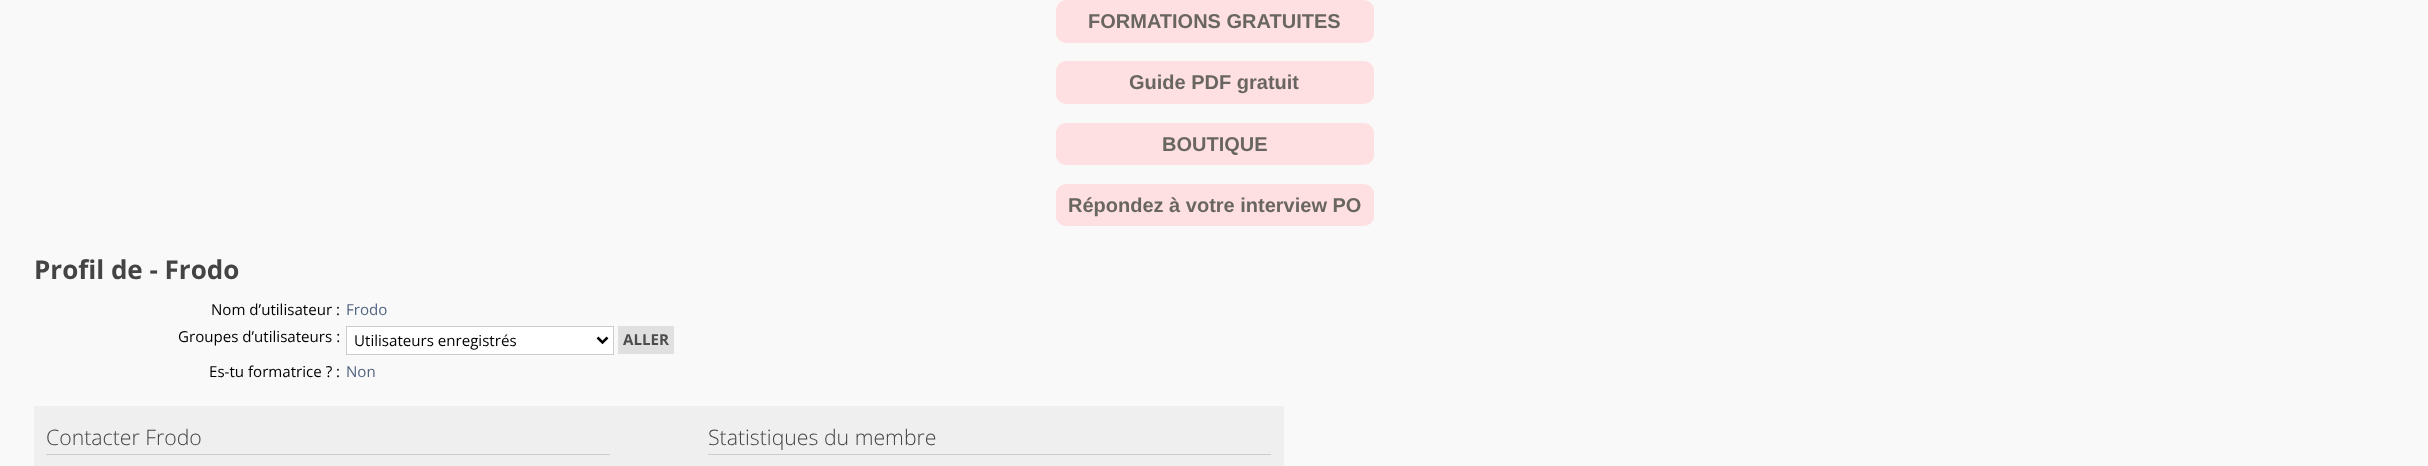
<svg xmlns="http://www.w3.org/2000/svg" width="2428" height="466">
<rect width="100%" height="100%" fill="#f9f9f9"/>
<rect x="1056" width="318" height="43" rx="10" fill="#fee0e2"/>
<rect x="1056" y="8" width="318" height="27" fill="#fee0e2"/>
<text x="1088" y="28" style="font-family:Liberation Sans;font-size:20px;font-weight:bold;fill:#696661">FORMATIONS GRATUITES</text>
<rect x="1056" y="61" width="318" height="43" rx="10" fill="#fee0e2"/>
<rect x="1056" y="69" width="318" height="27" fill="#fee0e2"/>
<text x="1129" y="89" style="font-family:Liberation Sans;font-size:20px;font-weight:bold;fill:#696661">Guide PDF gratuit</text>
<rect x="1056" y="123" width="318" height="42" rx="10" fill="#fee0e2"/>
<rect x="1056" y="130" width="318" height="28" fill="#fee0e2"/>
<text x="1162" y="151" style="font-family:Liberation Sans;font-size:20px;font-weight:bold;fill:#696661">BOUTIQUE</text>
<rect x="1056" y="184" width="318" height="42" rx="10" fill="#fee0e2"/>
<rect x="1056" y="191" width="318" height="28" fill="#fee0e2"/>
<text x="1068" y="212" style="font-family:Liberation Sans;font-size:20px;font-weight:bold;fill:#696661">Répondez à votre interview PO</text>
<text x="34" y="279" style="font-family:Open Sans;font-size:26px;font-weight:bold;fill:#444">Profil de - Frodo</text>
<text x="211" y="315" style="font-family:Open Sans;font-size:15.1px;fill:#000">Nom d’utilisateur :</text>
<text x="346" y="315" style="font-family:Open Sans;font-size:15.1px;fill:#536482">Frodo</text>
<text x="178" y="342" style="font-family:Open Sans;font-size:15.1px;fill:#000">Groupes d’utilisateurs :</text>
<rect x="346.5" y="326.5" width="267" height="28" fill="#fff" stroke="#ccc"/>
<path d="M597.5 337.5l5 5l5-5" fill="none" stroke="#000" stroke-width="2.5"/>
<text x="354" y="346" style="font-family:Open Sans;font-size:15.1px;fill:#000">Utilisateurs enregistrés</text>
<rect x="618" y="326" width="56" height="28" fill="#e0e0e0"/>
<text x="623" y="345" style="font-family:Open Sans;font-size:15.1px;font-weight:bold;fill:#4d4d4d">ALLER</text>
<text x="209" y="377" style="font-family:Open Sans;font-size:15.1px;fill:#000">Es-tu formatrice ? :</text>
<text x="346" y="377" style="font-family:Open Sans;font-size:15.1px;fill:#536482">Non</text>
<rect x="34" y="406" width="1250" height="60" fill="#efefef"/>
<rect x="46" y="454" width="564" height="1" fill="#ccc"/>
<text x="46" y="445" style="font-family:Open Sans;font-size:21.25px;font-weight:300;fill:#444">Contacter Frodo</text>
<rect x="708" y="454" width="563" height="1" fill="#ccc"/>
<text x="708" y="445" style="font-family:Open Sans;font-size:21.25px;font-weight:300;fill:#444">Statistiques du membre</text>
</svg>
